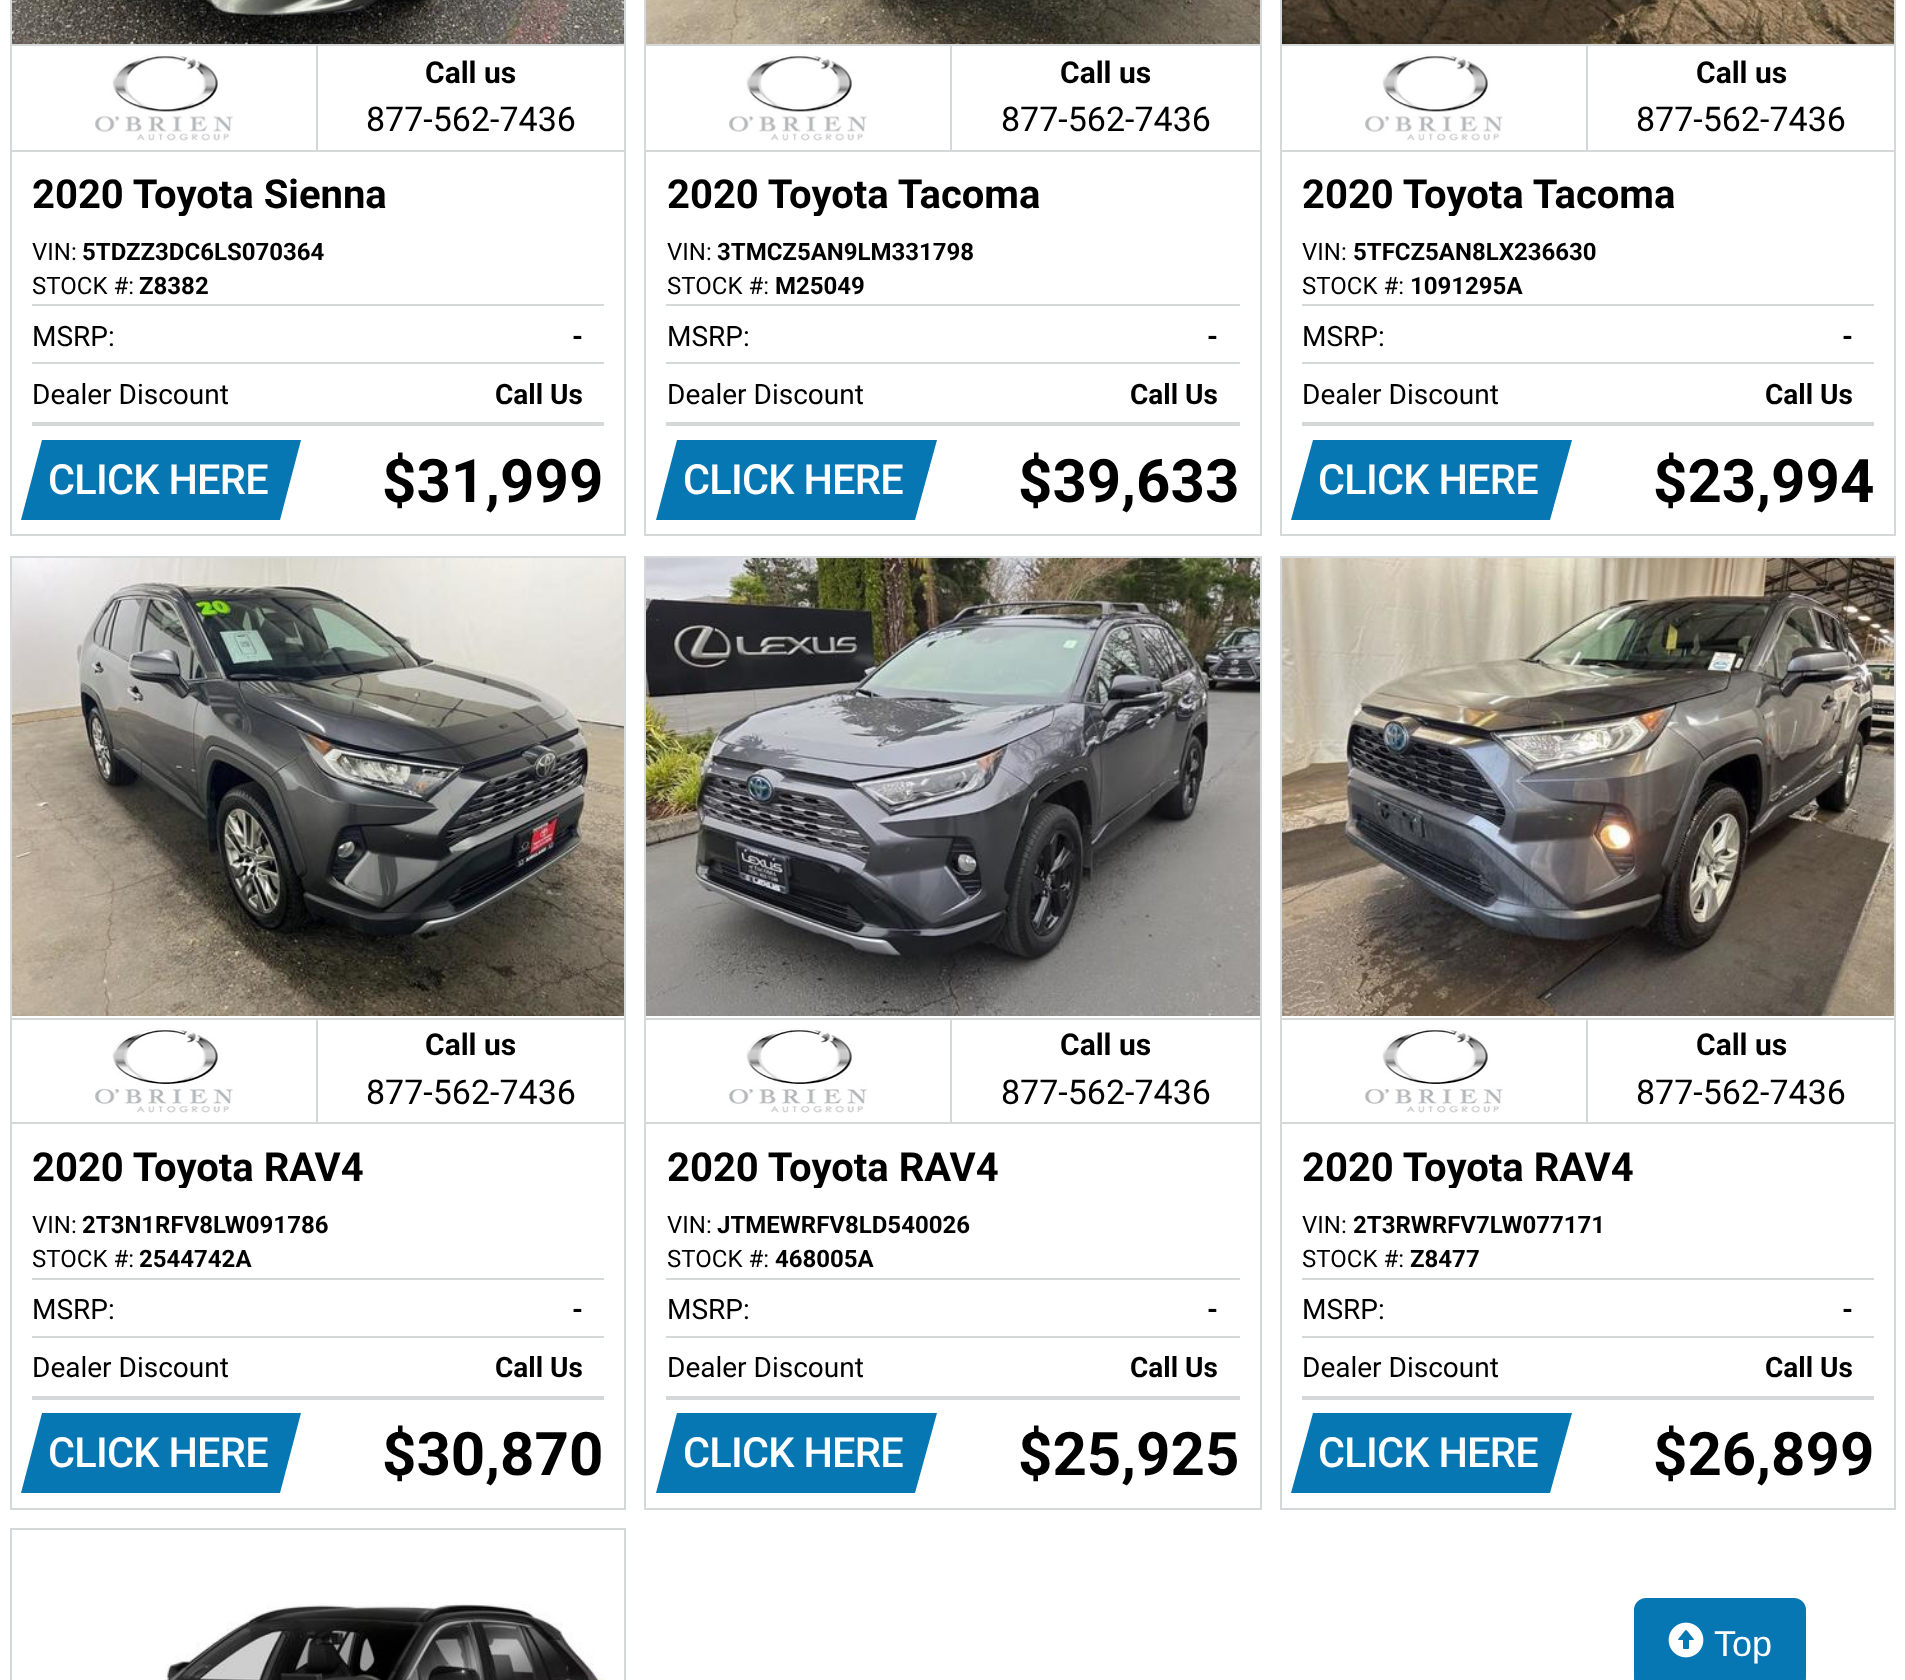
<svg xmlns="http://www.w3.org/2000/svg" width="1905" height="1680">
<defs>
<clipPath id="clip1"><rect x="32" y="172" width="354" height="44"/></clipPath>
<clipPath id="clip2"><rect x="666" y="172" width="374" height="44"/></clipPath>
<clipPath id="clip3"><rect x="1302" y="172" width="374" height="44"/></clipPath>
<clipPath id="clip4"><rect x="32" y="1144" width="332" height="44"/></clipPath>
<clipPath id="clip5"><rect x="666" y="1144" width="332" height="44"/></clipPath>
<clipPath id="clip6"><rect x="1302" y="1144" width="332" height="44"/></clipPath>
</defs>
<rect width="100%" height="100%" fill="#fff"/>
<rect x="11" y="-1" width="614" height="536" fill="none" stroke="#d4d8d9" stroke-width="2"/>
<image x="12" y="0" width="612" height="44" href="media/1.png"/>
<rect x="12" y="44" width="612" height="2" fill="#d4d8d9"/>
<rect x="316" y="44" width="2" height="108" fill="#d4d8d9"/>
<rect x="12" y="150" width="612" height="2" fill="#d4d8d9"/>
<image x="95" y="54" width="138" height="87" href="media/2.png"/>
<text x="425" y="83" style="font-family:Roboto;font-size:30px;font-weight:bold;fill:#000">Call us</text>
<text x="366" y="131" style="font-family:Roboto;font-size:34px;fill:#000">877-562-7436</text>
<g clip-path="url(#clip1)">
<text x="32" y="208" style="font-family:Roboto;font-size:40px;font-weight:bold;fill:#000">2020 Toyota Sienna</text>
</g>
<text x="32" y="260" style="font-family:Roboto;font-size:24px;fill:#000">VIN:</text>
<text x="82" y="260" style="font-family:Roboto;font-size:24px;font-weight:bold;fill:#000">5TDZZ3DC6LS070364</text>
<text x="32" y="294" style="font-family:Roboto;font-size:24px;fill:#000">STOCK #:</text>
<text x="139" y="294" style="font-family:Roboto;font-size:24px;font-weight:bold;fill:#000">Z8382</text>
<rect x="32" y="304" width="572" height="2" fill="#d4d8d9"/>
<rect x="32" y="362" width="572" height="2" fill="#d4d8d9"/>
<text x="32" y="346" style="font-family:Roboto;font-size:28px;fill:#000">MSRP:</text>
<text x="572" y="346" style="font-family:Roboto;font-size:28px;font-weight:bold;fill:#000">-</text>
<rect x="32" y="422" width="572" height="4" fill="#d4d8d9"/>
<text x="32" y="404" style="font-family:Roboto;font-size:28px;fill:#000">Dealer Discount</text>
<text x="495" y="404" style="font-family:Roboto;font-size:28px;font-weight:bold;fill:#000">Call Us</text>
<path d="M42 440h259l-21 80h-259z" fill="#0777b3"/>
<text x="48" y="494" style="font-family:Roboto;font-size:41.5px;font-weight:500;letter-spacing:-0.75px;fill:#fff">CLICK HERE</text>
<text x="382" y="502" style="font-family:Roboto;font-size:60px;font-weight:bold;fill:#000">$31,999</text>
<rect x="645" y="-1" width="616" height="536" fill="none" stroke="#d4d8d9" stroke-width="2"/>
<image x="646" y="0" width="614" height="44" href="media/3.png"/>
<rect x="646" y="44" width="614" height="2" fill="#d4d8d9"/>
<rect x="950" y="44" width="2" height="108" fill="#d4d8d9"/>
<rect x="646" y="150" width="614" height="2" fill="#d4d8d9"/>
<image x="729" y="54" width="138" height="87" href="media/4.png"/>
<text x="1060" y="83" style="font-family:Roboto;font-size:30px;font-weight:bold;fill:#000">Call us</text>
<text x="1001" y="131" style="font-family:Roboto;font-size:34px;fill:#000">877-562-7436</text>
<g clip-path="url(#clip2)">
<text x="667" y="208" style="font-family:Roboto;font-size:40px;font-weight:bold;fill:#000">2020 Toyota Tacoma</text>
</g>
<text x="667" y="260" style="font-family:Roboto;font-size:24px;fill:#000">VIN:</text>
<text x="717" y="260" style="font-family:Roboto;font-size:24px;font-weight:bold;fill:#000">3TMCZ5AN9LM331798</text>
<text x="667" y="294" style="font-family:Roboto;font-size:24px;fill:#000">STOCK #:</text>
<text x="775" y="294" style="font-family:Roboto;font-size:24px;font-weight:bold;fill:#000">M25049</text>
<rect x="666" y="304" width="574" height="2" fill="#d4d8d9"/>
<rect x="666" y="362" width="574" height="2" fill="#d4d8d9"/>
<text x="667" y="346" style="font-family:Roboto;font-size:28px;fill:#000">MSRP:</text>
<text x="1207" y="346" style="font-family:Roboto;font-size:28px;font-weight:bold;fill:#000">-</text>
<rect x="666" y="422" width="574" height="4" fill="#d4d8d9"/>
<text x="667" y="404" style="font-family:Roboto;font-size:28px;fill:#000">Dealer Discount</text>
<text x="1130" y="404" style="font-family:Roboto;font-size:28px;font-weight:bold;fill:#000">Call Us</text>
<path d="M677 440h260l-22 80h-259z" fill="#0777b3"/>
<text x="683" y="494" style="font-family:Roboto;font-size:41.5px;font-weight:500;letter-spacing:-0.75px;fill:#fff">CLICK HERE</text>
<text x="1018" y="502" style="font-family:Roboto;font-size:60px;font-weight:bold;fill:#000">$39,633</text>
<rect x="1281" y="-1" width="614" height="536" fill="none" stroke="#d4d8d9" stroke-width="2"/>
<image x="1282" y="0" width="612" height="44" href="media/5.png"/>
<rect x="1282" y="44" width="612" height="2" fill="#d4d8d9"/>
<rect x="1586" y="44" width="2" height="108" fill="#d4d8d9"/>
<rect x="1282" y="150" width="612" height="2" fill="#d4d8d9"/>
<image x="1365" y="54" width="138" height="87" href="media/2.png"/>
<text x="1696" y="83" style="font-family:Roboto;font-size:30px;font-weight:bold;fill:#000">Call us</text>
<text x="1636" y="131" style="font-family:Roboto;font-size:34px;fill:#000">877-562-7436</text>
<g clip-path="url(#clip3)">
<text x="1302" y="208" style="font-family:Roboto;font-size:40px;font-weight:bold;fill:#000">2020 Toyota Tacoma</text>
</g>
<text x="1302" y="260" style="font-family:Roboto;font-size:24px;fill:#000">VIN:</text>
<text x="1353" y="260" style="font-family:Roboto;font-size:24px;font-weight:bold;fill:#000">5TFCZ5AN8LX236630</text>
<text x="1302" y="294" style="font-family:Roboto;font-size:24px;fill:#000">STOCK #:</text>
<text x="1410" y="294" style="font-family:Roboto;font-size:24px;font-weight:bold;fill:#000">1091295A</text>
<rect x="1302" y="304" width="572" height="2" fill="#d4d8d9"/>
<rect x="1302" y="362" width="572" height="2" fill="#d4d8d9"/>
<text x="1302" y="346" style="font-family:Roboto;font-size:28px;fill:#000">MSRP:</text>
<text x="1842" y="346" style="font-family:Roboto;font-size:28px;font-weight:bold;fill:#000">-</text>
<rect x="1302" y="422" width="572" height="4" fill="#d4d8d9"/>
<text x="1302" y="404" style="font-family:Roboto;font-size:28px;fill:#000">Dealer Discount</text>
<text x="1765" y="404" style="font-family:Roboto;font-size:28px;font-weight:bold;fill:#000">Call Us</text>
<path d="M1313 440h259l-22 80h-259z" fill="#0777b3"/>
<text x="1318" y="494" style="font-family:Roboto;font-size:41.5px;font-weight:500;letter-spacing:-0.75px;fill:#fff">CLICK HERE</text>
<text x="1653" y="502" style="font-family:Roboto;font-size:60px;font-weight:bold;fill:#000">$23,994</text>
<rect x="11" y="557" width="614" height="952" fill="none" stroke="#d4d8d9" stroke-width="2"/>
<image x="12" y="558" width="612" height="458" href="media/6.png"/>
<rect x="12" y="1018" width="612" height="2" fill="#d4d8d9"/>
<rect x="316" y="1018" width="2" height="106" fill="#d4d8d9"/>
<rect x="12" y="1122" width="612" height="2" fill="#d4d8d9"/>
<image x="95" y="1028" width="138" height="85" href="media/7.png"/>
<text x="425" y="1055" style="font-family:Roboto;font-size:30px;font-weight:bold;fill:#000">Call us</text>
<text x="366" y="1104" style="font-family:Roboto;font-size:34px;fill:#000">877-562-7436</text>
<g clip-path="url(#clip4)">
<text x="32" y="1181" style="font-family:Roboto;font-size:40px;font-weight:bold;fill:#000">2020 Toyota RAV4</text>
</g>
<text x="32" y="1233" style="font-family:Roboto;font-size:24px;fill:#000">VIN:</text>
<text x="82" y="1233" style="font-family:Roboto;font-size:24px;font-weight:bold;fill:#000">2T3N1RFV8LW091786</text>
<text x="32" y="1267" style="font-family:Roboto;font-size:24px;fill:#000">STOCK #:</text>
<text x="139" y="1267" style="font-family:Roboto;font-size:24px;font-weight:bold;fill:#000">2544742A</text>
<rect x="32" y="1278" width="572" height="2" fill="#d4d8d9"/>
<rect x="32" y="1336" width="572" height="2" fill="#d4d8d9"/>
<text x="32" y="1319" style="font-family:Roboto;font-size:28px;fill:#000">MSRP:</text>
<text x="572" y="1319" style="font-family:Roboto;font-size:28px;font-weight:bold;fill:#000">-</text>
<rect x="32" y="1396" width="572" height="4" fill="#d4d8d9"/>
<text x="32" y="1377" style="font-family:Roboto;font-size:28px;fill:#000">Dealer Discount</text>
<text x="495" y="1377" style="font-family:Roboto;font-size:28px;font-weight:bold;fill:#000">Call Us</text>
<path d="M42 1413h259l-21 80h-259z" fill="#0777b3"/>
<text x="48" y="1467" style="font-family:Roboto;font-size:41.5px;font-weight:500;letter-spacing:-0.75px;fill:#fff">CLICK HERE</text>
<text x="382" y="1475" style="font-family:Roboto;font-size:60px;font-weight:bold;fill:#000">$30,870</text>
<rect x="645" y="557" width="616" height="952" fill="none" stroke="#d4d8d9" stroke-width="2"/>
<image x="646" y="558" width="614" height="458" href="media/8.png"/>
<rect x="646" y="1018" width="614" height="2" fill="#d4d8d9"/>
<rect x="950" y="1018" width="2" height="106" fill="#d4d8d9"/>
<rect x="646" y="1122" width="614" height="2" fill="#d4d8d9"/>
<image x="729" y="1028" width="138" height="85" href="media/9.png"/>
<text x="1060" y="1055" style="font-family:Roboto;font-size:30px;font-weight:bold;fill:#000">Call us</text>
<text x="1001" y="1104" style="font-family:Roboto;font-size:34px;fill:#000">877-562-7436</text>
<g clip-path="url(#clip5)">
<text x="667" y="1181" style="font-family:Roboto;font-size:40px;font-weight:bold;fill:#000">2020 Toyota RAV4</text>
</g>
<text x="667" y="1233" style="font-family:Roboto;font-size:24px;fill:#000">VIN:</text>
<text x="717" y="1233" style="font-family:Roboto;font-size:24px;font-weight:bold;fill:#000">JTMEWRFV8LD540026</text>
<text x="667" y="1267" style="font-family:Roboto;font-size:24px;fill:#000">STOCK #:</text>
<text x="775" y="1267" style="font-family:Roboto;font-size:24px;font-weight:bold;fill:#000">468005A</text>
<rect x="666" y="1278" width="574" height="2" fill="#d4d8d9"/>
<rect x="666" y="1336" width="574" height="2" fill="#d4d8d9"/>
<text x="667" y="1319" style="font-family:Roboto;font-size:28px;fill:#000">MSRP:</text>
<text x="1207" y="1319" style="font-family:Roboto;font-size:28px;font-weight:bold;fill:#000">-</text>
<rect x="666" y="1396" width="574" height="4" fill="#d4d8d9"/>
<text x="667" y="1377" style="font-family:Roboto;font-size:28px;fill:#000">Dealer Discount</text>
<text x="1130" y="1377" style="font-family:Roboto;font-size:28px;font-weight:bold;fill:#000">Call Us</text>
<path d="M677 1413h260l-22 80h-259z" fill="#0777b3"/>
<text x="683" y="1467" style="font-family:Roboto;font-size:41.5px;font-weight:500;letter-spacing:-0.75px;fill:#fff">CLICK HERE</text>
<text x="1018" y="1475" style="font-family:Roboto;font-size:60px;font-weight:bold;fill:#000">$25,925</text>
<rect x="1281" y="557" width="614" height="952" fill="none" stroke="#d4d8d9" stroke-width="2"/>
<image x="1282" y="558" width="612" height="458" href="media/10.png"/>
<rect x="1282" y="1018" width="612" height="2" fill="#d4d8d9"/>
<rect x="1586" y="1018" width="2" height="106" fill="#d4d8d9"/>
<rect x="1282" y="1122" width="612" height="2" fill="#d4d8d9"/>
<image x="1365" y="1028" width="138" height="85" href="media/7.png"/>
<text x="1696" y="1055" style="font-family:Roboto;font-size:30px;font-weight:bold;fill:#000">Call us</text>
<text x="1636" y="1104" style="font-family:Roboto;font-size:34px;fill:#000">877-562-7436</text>
<g clip-path="url(#clip6)">
<text x="1302" y="1181" style="font-family:Roboto;font-size:40px;font-weight:bold;fill:#000">2020 Toyota RAV4</text>
</g>
<text x="1302" y="1233" style="font-family:Roboto;font-size:24px;fill:#000">VIN:</text>
<text x="1353" y="1233" style="font-family:Roboto;font-size:24px;font-weight:bold;fill:#000">2T3RWRFV7LW077171</text>
<text x="1302" y="1267" style="font-family:Roboto;font-size:24px;fill:#000">STOCK #:</text>
<text x="1410" y="1267" style="font-family:Roboto;font-size:24px;font-weight:bold;fill:#000">Z8477</text>
<rect x="1302" y="1278" width="572" height="2" fill="#d4d8d9"/>
<rect x="1302" y="1336" width="572" height="2" fill="#d4d8d9"/>
<text x="1302" y="1319" style="font-family:Roboto;font-size:28px;fill:#000">MSRP:</text>
<text x="1842" y="1319" style="font-family:Roboto;font-size:28px;font-weight:bold;fill:#000">-</text>
<rect x="1302" y="1396" width="572" height="4" fill="#d4d8d9"/>
<text x="1302" y="1377" style="font-family:Roboto;font-size:28px;fill:#000">Dealer Discount</text>
<text x="1765" y="1377" style="font-family:Roboto;font-size:28px;font-weight:bold;fill:#000">Call Us</text>
<path d="M1313 1413h259l-22 80h-259z" fill="#0777b3"/>
<text x="1318" y="1467" style="font-family:Roboto;font-size:41.5px;font-weight:500;letter-spacing:-0.75px;fill:#fff">CLICK HERE</text>
<text x="1653" y="1475" style="font-family:Roboto;font-size:60px;font-weight:bold;fill:#000">$26,899</text>
<rect x="11" y="1529" width="614" height="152" fill="none" stroke="#d4d8d9" stroke-width="2"/>
<image x="165" y="1602" width="443" height="78" href="media/11.png"/>
<rect x="1635" y="1599" width="170" height="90" rx="11" fill="#0777b3" stroke="#0777b3" stroke-width="2"/>
<image x="1668" y="1622" width="36" height="36" href="media/12.png"/>
<text x="1714" y="1656" style="font-family:Liberation Sans;font-size:36px;fill:#fff">Top</text>
</svg>
